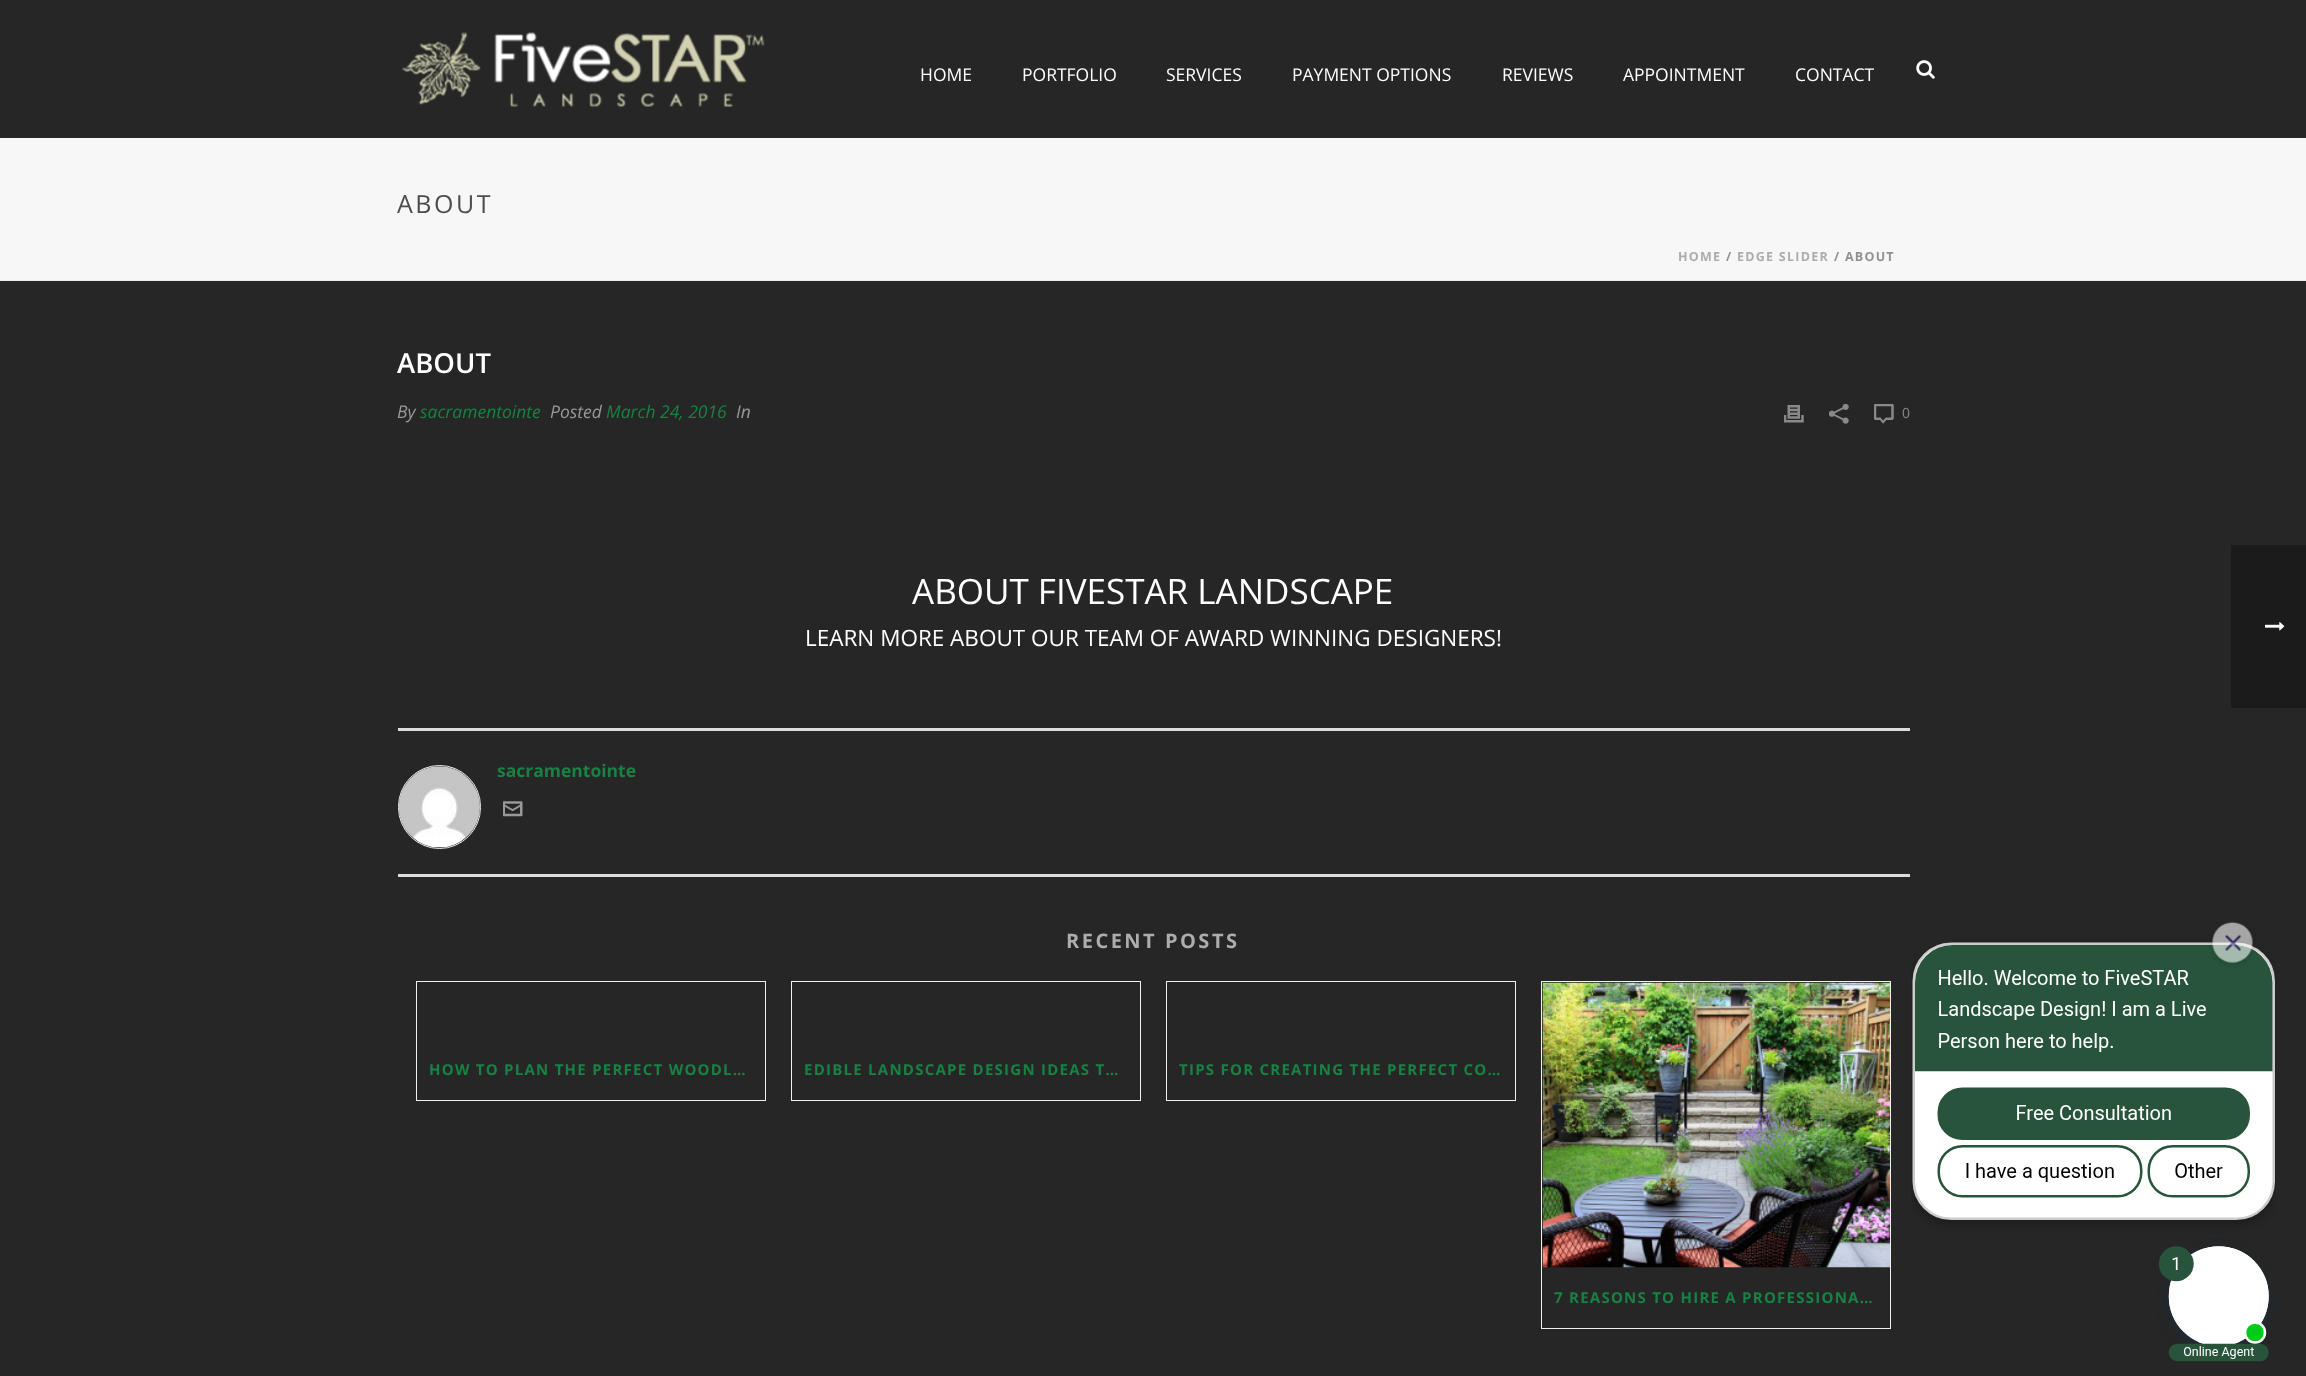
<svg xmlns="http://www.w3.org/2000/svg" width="2306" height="1376">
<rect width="100%" height="100%" fill="#262626"/>
<rect y="138" width="2306" height="142" fill="#f7f7f7"/>
<rect y="280" width="2306" height="1" fill="#ededed"/>
<image x="402" y="32" width="363" height="75" href="media/1.png"/>
<text x="920" y="81" style="font-family:Open Sans;font-size:17.5px;fill:#fefefe">HOME</text>
<text x="1022" y="81" style="font-family:Open Sans;font-size:17.5px;fill:#fefefe">PORTFOLIO</text>
<text x="1166" y="81" style="font-family:Open Sans;font-size:17.5px;fill:#fefefe">SERVICES</text>
<text x="1292" y="81" style="font-family:Open Sans;font-size:17.5px;fill:#fefefe">PAYMENT OPTIONS</text>
<text x="1502" y="81" style="font-family:Open Sans;font-size:17.5px;fill:#fefefe">REVIEWS</text>
<text x="1623" y="81" style="font-family:Open Sans;font-size:17.5px;fill:#fefefe">APPOINTMENT</text>
<text x="1795" y="81" style="font-family:Open Sans;font-size:17.5px;fill:#fefefe">CONTACT</text>
<image x="1916" y="60" width="19" height="19" href="media/2.png"/>
<text x="397" y="213" style="font-family:Open Sans;font-size:25px;letter-spacing:2.5px;fill:#4d4d4d">ABOUT</text>
<text x="1678" y="261" style="font-family:Open Sans;font-size:12.5px;font-weight:bold;letter-spacing:1.25px;fill:#adadad">HOME</text>
<text x="1726" y="261" style="font-family:Open Sans;font-size:12.5px;font-weight:bold;letter-spacing:1.25px;fill:#919191">/</text>
<text x="1737" y="261" style="font-family:Open Sans;font-size:12.5px;font-weight:bold;letter-spacing:1.25px;fill:#adadad">EDGE SLIDER</text>
<text x="1834" y="261" style="font-family:Open Sans;font-size:12.5px;font-weight:bold;letter-spacing:1.25px;fill:#919191">/ ABOUT</text>
<text x="397" y="373" style="font-family:Open Sans;font-size:27.5px;font-weight:600;fill:#fefefe">ABOUT</text>
<text x="397" y="418" style="font-family:Open Sans;font-size:17.5px;font-style:italic;fill:#999">By</text>
<text x="420" y="418" style="font-family:Open Sans;font-size:17.5px;font-style:italic;fill:#178243">sacramentointe</text>
<text x="550" y="418" style="font-family:Open Sans;font-size:17.5px;font-style:italic;fill:#999">Posted</text>
<text x="606" y="418" style="font-family:Open Sans;font-size:17.5px;font-style:italic;fill:#178243">March 24, 2016</text>
<text x="736" y="418" style="font-family:Open Sans;font-size:17.5px;font-style:italic;fill:#999">In</text>
<image x="1784" y="405" width="20" height="18" href="media/3.png"/>
<image x="1829" y="404" width="20" height="20" href="media/4.png"/>
<image x="1874" y="404" width="20" height="20" href="media/5.png"/>
<text x="1902" y="418" style="font-family:Open Sans;font-size:14px;fill:#898989">0</text>
<text x="912" y="604" style="font-family:Open Sans;font-size:35px;fill:#fefefe">ABOUT FIVESTAR LANDSCAPE</text>
<text x="805" y="646" style="font-family:Open Sans;font-size:22.5px;fill:#fefefe">LEARN MORE ABOUT OUR TEAM OF AWARD WINNING DESIGNERS!</text>
<rect x="398" y="728" width="1512" height="3" fill="#ddd"/>
<rect x="398" y="874" width="1512" height="3" fill="#ddd"/>
<rect x="398.5" y="765.5" width="82" height="83" rx="41" fill="none" stroke="#eee"/>
<image x="399" y="766" width="81" height="82" href="media/6.png"/>
<text x="497" y="777" style="font-family:Open Sans;font-size:17.5px;font-weight:bold;fill:#178243">sacramentointe</text>
<image x="503" y="801" width="20" height="16" href="media/7.png"/>
<text x="1066" y="948" style="font-family:Open Sans;font-size:20px;font-weight:bold;letter-spacing:2.5px;fill:#adadad">RECENT POSTS</text>
<rect x="416.5" y="981.5" width="349" height="119" fill="none" stroke="#efefef"/>
<text x="429" y="1075" style="font-family:Open Sans;font-size:15px;font-weight:bold;letter-spacing:1.25px;fill:#178243">HOW TO PLAN THE PERFECT WOODL…</text>
<rect x="791.5" y="981.5" width="349" height="119" fill="none" stroke="#efefef"/>
<text x="804" y="1075" style="font-family:Open Sans;font-size:15px;font-weight:bold;letter-spacing:1.25px;fill:#178243">EDIBLE LANDSCAPE DESIGN IDEAS T…</text>
<rect x="1166.5" y="981.5" width="349" height="119" fill="none" stroke="#efefef"/>
<text x="1179" y="1075" style="font-family:Open Sans;font-size:15px;font-weight:bold;letter-spacing:1.25px;fill:#178243">TIPS FOR CREATING THE PERFECT CO…</text>
<rect x="1541.5" y="981.5" width="349" height="347" fill="none" stroke="#efefef"/>
<image x="1542" y="982" width="348" height="286" href="media/8.png"/>
<text x="1554" y="1303" style="font-family:Open Sans;font-size:15px;font-weight:bold;letter-spacing:1.25px;fill:#178243">7 REASONS TO HIRE A PROFESSIONA…</text>
<rect x="2231" y="545" width="75" height="163" fill="#1b1b1b"/>
<image x="2265" y="622" width="20" height="9" href="media/9.png"/>
<image x="1911" y="921" width="365" height="441" href="media/10.png"/>
</svg>
